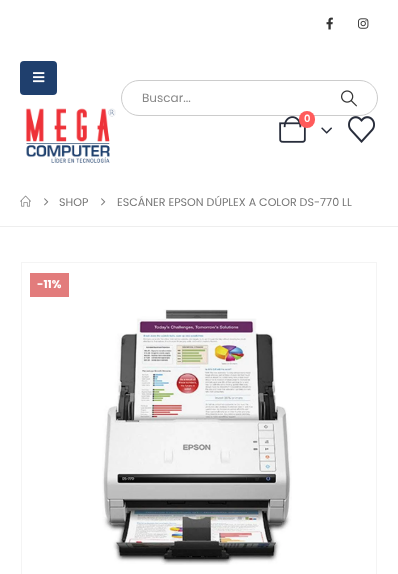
<svg xmlns="http://www.w3.org/2000/svg" width="398" height="574">
<rect width="100%" height="100%" fill="#fff"/>
<image x="326" y="17" width="7" height="13" href="media/1.png"/>
<image x="358" y="18" width="11" height="11" href="media/2.png"/>
<rect x="20" y="61" width="37" height="34" rx="4" fill="#1f3f6d"/>
<image x="33" y="72" width="12" height="11" href="media/3.png"/>
<image x="25" y="108" width="91" height="55" href="media/4.png"/>
<rect x="121.5" y="80.5" width="256" height="35" rx="17.5" fill="none" stroke="#ccc"/>
<text x="142" y="102" style="font-family:Poppins;font-size:12px;fill:#888">Buscar...</text>
<image x="341" y="90" width="16" height="17" href="media/5.png"/>
<image x="279" y="116" width="27" height="27" href="media/6.png"/>
<rect x="299" y="111" width="16" height="17" rx="8" fill="#ff5b5b"/>
<text x="304" y="122" style="font-family:Poppins;font-size:10px;font-weight:600;fill:#fff">0</text>
<image x="321" y="127" width="11" height="7" href="media/7.png"/>
<image x="348" y="116" width="27" height="27" href="media/8.png"/>
<rect y="226" width="398" height="1" fill="#eee"/>
<image x="20" y="195" width="11" height="12" href="media/9.png"/>
<image x="44" y="198" width="5" height="8" href="media/10.png"/>
<text x="59" y="206" style="font-family:Poppins;font-size:11.1px;fill:#777">SHOP</text>
<image x="101" y="198" width="5" height="8" href="media/10.png"/>
<text x="117" y="206" style="font-family:Poppins;font-size:11.1px;fill:#777">ESCÁNER EPSON DÚPLEX A COLOR DS-770 LL</text>
<rect x="21.5" y="262.5" width="355" height="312" fill="none" stroke="#f4f4f4"/>
<image x="102" y="309" width="190" height="256" href="media/11.png"/>
<rect x="30" y="273" width="39" height="24" fill="#e27c7c"/>
<text x="37" y="288" style="font-family:Poppins;font-size:11.1px;font-weight:bold;fill:#fff">-11%</text>
</svg>
